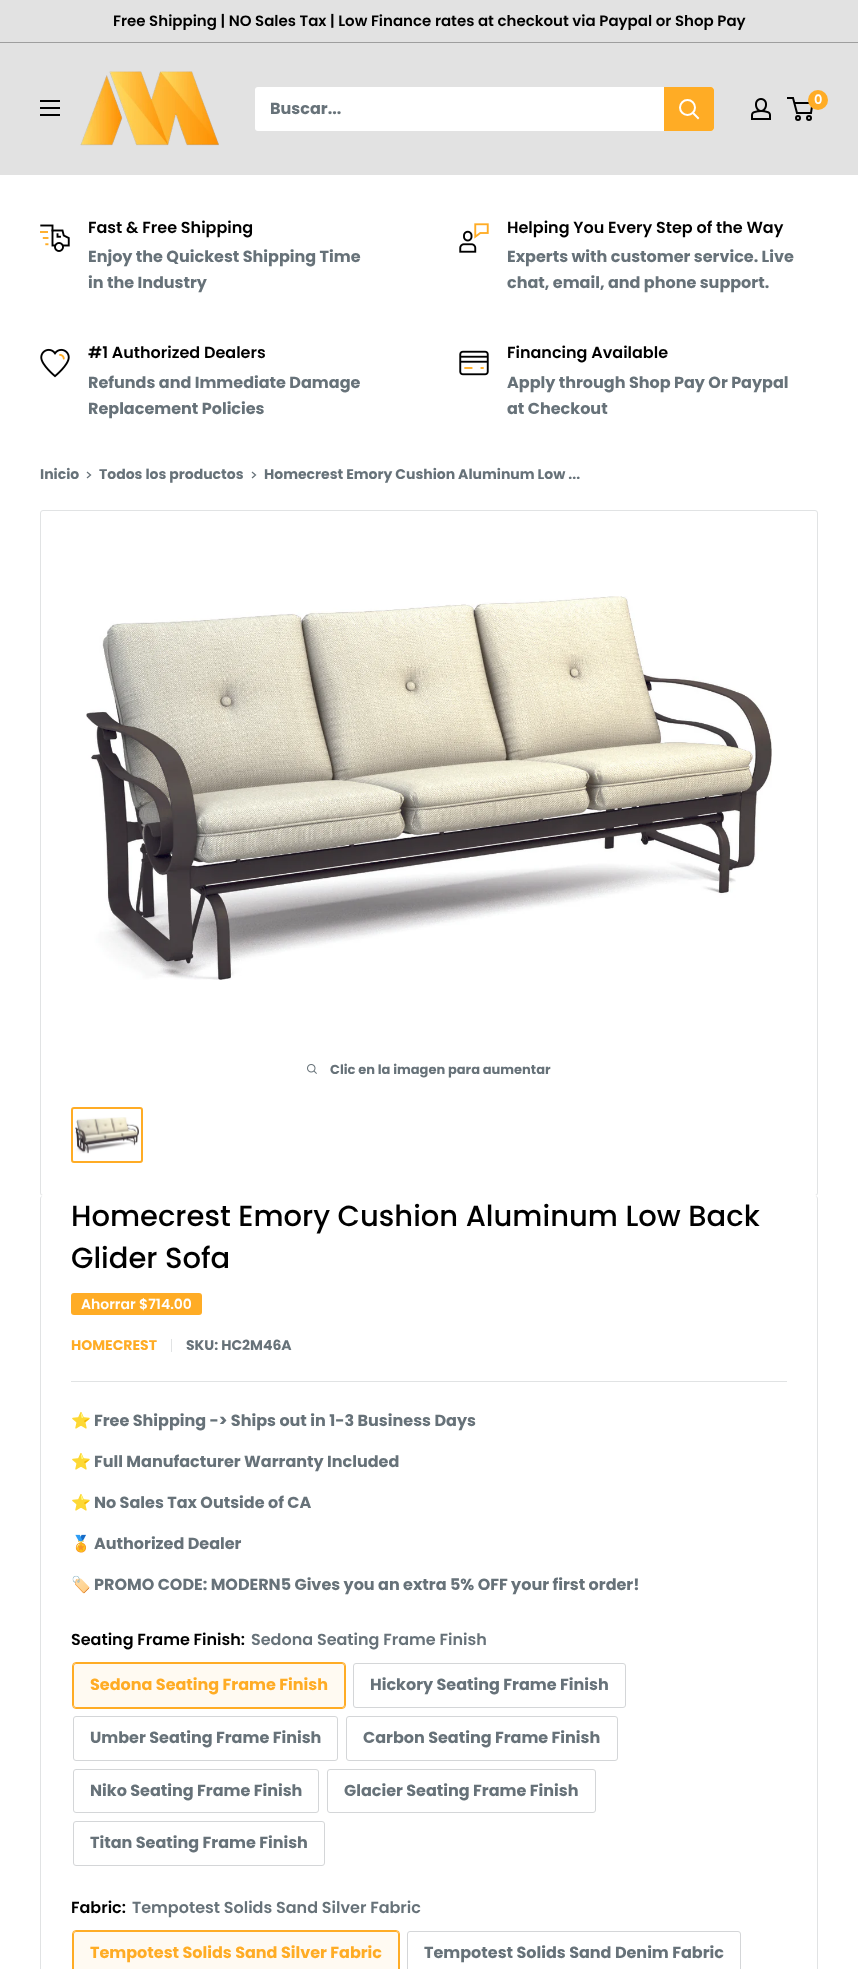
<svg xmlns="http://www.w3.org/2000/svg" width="858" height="1969">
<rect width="100%" height="100%" fill="#fff"/>
<rect width="858" height="42" fill="#e2e2e2"/>
<rect y="42" width="858" height="1" fill="#9e9e9e"/>
<text x="113" y="26" style="font-family:Poppins;font-size:15px;font-weight:600;fill:#000">Free Shipping | NO Sales Tax | Low Finance rates at checkout via Paypal or Shop Pay</text>
<rect y="43" width="858" height="132" fill="#e2e2e2"/>
<image x="80" y="71" width="139" height="75" href="media/1.png"/>
<image x="751" y="98" width="20" height="22" href="media/2.png"/>
<circle cx="798" cy="118" r="2" fill="none" stroke="#000" stroke-width="2"/>
<circle cx="809" cy="118" r="2" fill="none" stroke="#000" stroke-width="2"/>
<path d="M794.5 103h18l-1.5 10h-14l-4-15h-6" fill="none" stroke="#000" stroke-width="2"/>
<circle cx="818" cy="100" r="10" fill="#ffac25"/>
<text x="814" y="104" style="font-family:Poppins;font-size:13px;font-weight:600;fill:#fff">0</text>
<image x="40" y="100" width="20" height="16" href="media/3.png"/>
<rect x="255" y="87" width="459" height="44" rx="3" fill="#fff"/>
<text x="270" y="114" style="font-family:Poppins;font-size:16px;font-weight:bold;fill:#677279">Buscar...</text>
<path d="M664 87h47c1.5 0 3 1.5 3 3v38c0 1.5-1.5 3-3 3h-47z" fill="#ffac25"/>
<path d="M698 118l-5-5" fill="none" stroke="#fff" stroke-width="2" stroke-linecap="square"/>
<circle cx="687.5" cy="107.5" r="7.5" fill="none" stroke="#fff" stroke-width="2"/>
<image x="40" y="224" width="30" height="28" href="media/4.png"/>
<text x="88" y="233" style="font-family:Poppins;font-size:16px;font-weight:600;fill:#000">Fast &amp; Free Shipping</text>
<text x="88" y="262" style="font-family:Poppins;font-size:16px;font-weight:bold;fill:#677279">Enjoy the Quickest Shipping Time</text>
<text x="88" y="288" style="font-family:Poppins;font-size:16px;font-weight:bold;fill:#677279">in the Industry</text>
<image x="459" y="223" width="30" height="30" href="media/5.png"/>
<text x="507" y="233" style="font-family:Poppins;font-size:16px;font-weight:600;fill:#000">Helping You Every Step of the Way</text>
<text x="507" y="262" style="font-family:Poppins;font-size:16px;font-weight:bold;fill:#677279">Experts with customer service. Live</text>
<text x="507" y="288" style="font-family:Poppins;font-size:16px;font-weight:bold;fill:#677279">chat, email, and phone support.</text>
<image x="40" y="348" width="30" height="30" href="media/6.png"/>
<text x="88" y="358" style="font-family:Poppins;font-size:16px;font-weight:600;fill:#000">#1 Authorized Dealers</text>
<text x="88" y="388" style="font-family:Poppins;font-size:16px;font-weight:bold;fill:#677279">Refunds and Immediate Damage</text>
<text x="88" y="414" style="font-family:Poppins;font-size:16px;font-weight:bold;fill:#677279">Replacement Policies</text>
<image x="459" y="350" width="30" height="26" href="media/7.png"/>
<text x="507" y="358" style="font-family:Poppins;font-size:16px;font-weight:600;fill:#000">Financing Available</text>
<text x="507" y="388" style="font-family:Poppins;font-size:16px;font-weight:bold;fill:#677279">Apply through Shop Pay Or Paypal</text>
<text x="507" y="414" style="font-family:Poppins;font-size:16px;font-weight:bold;fill:#677279">at Checkout</text>
<text x="40" y="479" style="font-family:Poppins;font-size:14px;font-weight:bold;fill:#677279">Inicio</text>
<path d="M87.5 472.5l3 2.5l-3 2.5" fill="none" stroke="#677279" stroke-width="1.3" stroke-linecap="square"/>
<text x="99" y="479" style="font-family:Poppins;font-size:14px;font-weight:bold;fill:#677279">Todos los productos</text>
<path d="M252.5 472.5l3 2.5l-3 2.5" fill="none" stroke="#677279" stroke-width="1.3" stroke-linecap="square"/>
<text x="264" y="479" style="font-family:Poppins;font-size:14px;font-weight:bold;fill:#677279">Homecrest Emory Cushion Aluminum Low ...</text>
<rect x="40.5" y="510.5" width="777" height="685" rx="2.5" fill="none" stroke="#e1e3e4"/>
<image x="86" y="596" width="686" height="384" href="media/8.png"/>
<image x="307" y="1064" width="10" height="10" href="media/9.png"/>
<text x="330" y="1074" style="font-family:Poppins;font-size:13px;font-weight:bold;fill:#677279">Clic en la imagen para aumentar</text>
<rect x="72" y="1108" width="70" height="54" rx="2" fill="none" stroke="#ffac25" stroke-width="2"/>
<image x="75" y="1117" width="64" height="37" href="media/10.png"/>
<path d="M43 1195c-2 0-3 2-3 4c0-2 1-3 3-3h772c2 0 3 1 3 3c0-2-1-4-3-4z" fill="#fff"/>
<path d="M43 1196h772c2 0 3 1 3 3v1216c0 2-1 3-3 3h-772c-2 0-3-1-3-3v-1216c0-2 1-3 3-3zm0 0h772c1 0 2 1 2 3v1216c0 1-1 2-2 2h-772c-1 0-2-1-2-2v-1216c0-2 1-3 2-3z" fill="#e1e3e4" fill-rule="evenodd"/>
<text x="71" y="1226" style="font-family:Poppins;font-size:29px;font-weight:500;fill:#000">Homecrest Emory Cushion Aluminum Low Back</text>
<text x="71" y="1268" style="font-family:Poppins;font-size:29px;font-weight:500;fill:#000">Glider Sofa</text>
<rect x="71" y="1293" width="131" height="22" rx="3" fill="#ffac25"/>
<text x="81" y="1309" style="font-family:Poppins;font-size:14px;font-weight:600;fill:#fff">Ahorrar $714.00</text>
<text x="71" y="1350" style="font-family:Poppins;font-size:14px;font-weight:bold;fill:#ffac25">HOMECREST</text>
<rect x="171" y="1339" width="1" height="13" fill="#e1e3e4"/>
<text x="186" y="1350" style="font-family:Poppins;font-size:14px;font-weight:bold;fill:#677279">SKU: HC2M46A</text>
<rect x="71" y="1381" width="716" height="1" fill="#e1e3e4"/>
<text x="71" y="1426" style="font-family:Noto Color Emoji;font-size:16px;font-weight:bold;fill:#677279">⭐</text>
<text x="94" y="1426" style="font-family:Poppins;font-size:16px;font-weight:bold;fill:#677279">Free Shipping -&gt; Ships out in 1-3 Business Days</text>
<text x="71" y="1467" style="font-family:Noto Color Emoji;font-size:16px;font-weight:bold;fill:#677279">⭐</text>
<text x="94" y="1467" style="font-family:Poppins;font-size:16px;font-weight:bold;fill:#677279">Full Manufacturer Warranty Included</text>
<text x="71" y="1508" style="font-family:Noto Color Emoji;font-size:16px;font-weight:bold;fill:#677279">⭐</text>
<text x="94" y="1508" style="font-family:Poppins;font-size:16px;font-weight:bold;fill:#677279">No Sales Tax Outside of CA</text>
<text x="71" y="1549" style="font-family:Noto Color Emoji;font-size:16px;font-weight:bold;fill:#677279">🏅</text>
<text x="94" y="1549" style="font-family:Poppins;font-size:16px;font-weight:bold;fill:#677279">Authorized Dealer</text>
<text x="71" y="1590" style="font-family:Noto Color Emoji;font-size:16px;font-weight:bold;fill:#677279">🏷️</text>
<text x="94" y="1590" style="font-family:Poppins;font-size:16px;font-weight:bold;fill:#677279">PROMO CODE: MODERN5 Gives you an extra 5% OFF your first order!</text>
<text x="71" y="1645" style="font-family:Poppins;font-size:16px;font-weight:600;fill:#000">Seating Frame Finish:</text>
<text x="251" y="1645" style="font-family:Poppins;font-size:16px;font-weight:600;fill:#677279">Sedona Seating Frame Finish</text>
<rect x="72.5" y="1662.5" width="273" height="46" rx="3.5" fill="none" stroke="#ffac25"/>
<rect x="73" y="1663" width="272" height="45" fill="#ffac250f"/>
<rect x="73.5" y="1663.5" width="271" height="44" rx="2.5" fill="none" stroke="#ffac25"/>
<text x="90" y="1690" style="font-family:Poppins;font-size:16px;font-weight:bold;fill:#ffac25">Sedona Seating Frame Finish</text>
<rect x="353.5" y="1663.5" width="272" height="44" rx="2.5" fill="none" stroke="#d4d6d8"/>
<text x="370" y="1690" style="font-family:Poppins;font-size:16px;font-weight:bold;fill:#677279">Hickory Seating Frame Finish</text>
<rect x="73.5" y="1716.5" width="264" height="44" rx="2.5" fill="none" stroke="#d4d6d8"/>
<text x="90" y="1743" style="font-family:Poppins;font-size:16px;font-weight:bold;fill:#677279">Umber Seating Frame Finish</text>
<rect x="346.5" y="1716.5" width="271" height="44" rx="2.5" fill="none" stroke="#d4d6d8"/>
<text x="363" y="1743" style="font-family:Poppins;font-size:16px;font-weight:bold;fill:#677279">Carbon Seating Frame Finish</text>
<rect x="73.5" y="1769.5" width="245" height="43" rx="2.5" fill="none" stroke="#d4d6d8"/>
<text x="90" y="1796" style="font-family:Poppins;font-size:16px;font-weight:bold;fill:#677279">Niko Seating Frame Finish</text>
<rect x="327.5" y="1769.5" width="268" height="43" rx="2.5" fill="none" stroke="#d4d6d8"/>
<text x="344" y="1796" style="font-family:Poppins;font-size:16px;font-weight:bold;fill:#677279">Glacier Seating Frame Finish</text>
<rect x="73.5" y="1821.5" width="251" height="44" rx="2.5" fill="none" stroke="#d4d6d8"/>
<text x="90" y="1848" style="font-family:Poppins;font-size:16px;font-weight:bold;fill:#677279">Titan Seating Frame Finish</text>
<text x="71" y="1913" style="font-family:Poppins;font-size:16px;font-weight:600;fill:#000">Fabric:</text>
<text x="132" y="1913" style="font-family:Poppins;font-size:16px;font-weight:600;fill:#677279">Tempotest Solids Sand Silver Fabric</text>
<rect x="72.5" y="1930.5" width="327" height="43" rx="3.5" fill="none" stroke="#ffac25"/>
<rect x="73" y="1931" width="326" height="38" fill="#ffac250f"/>
<rect x="73.5" y="1931.5" width="325" height="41" rx="2.5" fill="none" stroke="#ffac25"/>
<text x="90" y="1958" style="font-family:Poppins;font-size:16px;font-weight:bold;fill:#ffac25">Tempotest Solids Sand Silver Fabric</text>
<rect x="407.5" y="1931.5" width="333" height="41" rx="2.5" fill="none" stroke="#d4d6d8"/>
<text x="424" y="1958" style="font-family:Poppins;font-size:16px;font-weight:bold;fill:#677279">Tempotest Solids Sand Denim Fabric</text>
</svg>
